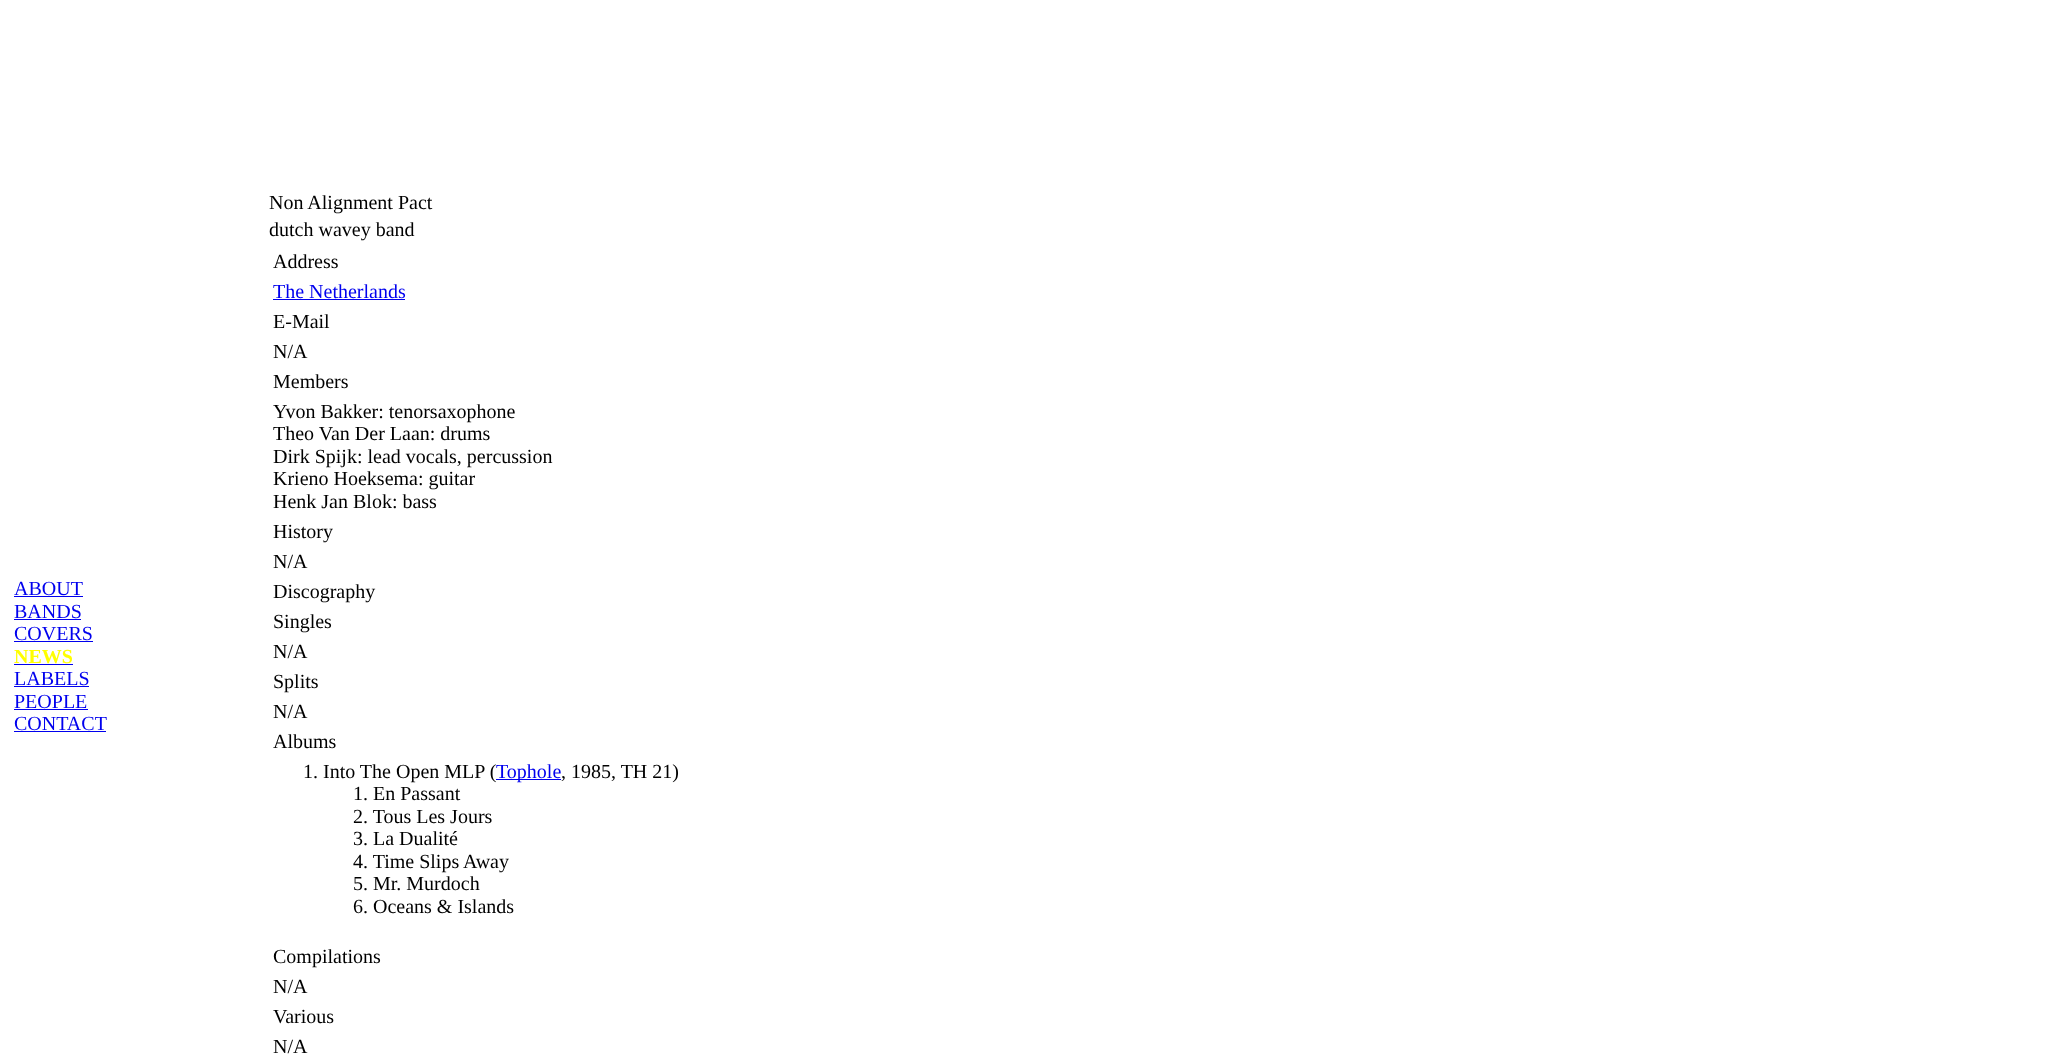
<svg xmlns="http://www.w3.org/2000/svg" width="2060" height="1062">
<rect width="100%" height="100%" fill="#fff"/>
<text x="269" y="209" style="font-family:Liberation Serif;font-size:20px;fill:#000">Non Alignment Pact</text>
<text x="14" y="595" style="font-family:Liberation Serif;font-size:20px;fill:#00e">ABOUT</text>
<rect x="14" y="596" width="69" height="1" fill="#00e"/>
<text x="14" y="618" style="font-family:Liberation Serif;font-size:20px;fill:#00e">BANDS</text>
<rect x="14" y="619" width="67" height="1" fill="#00e"/>
<text x="14" y="640" style="font-family:Liberation Serif;font-size:20px;fill:#00e">COVERS</text>
<rect x="14" y="641" width="79" height="1" fill="#00e"/>
<text x="14" y="663" style="font-family:Liberation Serif;font-size:20px;font-weight:bold;fill:#ff0">NEWS</text>
<rect x="14" y="664" width="59" height="1" fill="#00e"/>
<text x="14" y="685" style="font-family:Liberation Serif;font-size:20px;fill:#00e">LABELS</text>
<rect x="14" y="686" width="75" height="1" fill="#00e"/>
<text x="14" y="708" style="font-family:Liberation Serif;font-size:20px;fill:#00e">PEOPLE</text>
<rect x="14" y="709" width="74" height="1" fill="#00e"/>
<text x="14" y="730" style="font-family:Liberation Serif;font-size:20px;fill:#00e">CONTACT</text>
<rect x="14" y="731" width="92" height="1" fill="#00e"/>
<text x="269" y="236" style="font-family:Liberation Serif;font-size:20px;fill:#000">dutch wavey band</text>
<text x="273" y="268" style="font-family:Liberation Serif;font-size:20px;fill:#000">Address</text>
<text x="273" y="298" style="font-family:Liberation Serif;font-size:20px;fill:#00e">The Netherlands</text>
<rect x="273" y="299" width="132" height="1" fill="#00e"/>
<text x="273" y="328" style="font-family:Liberation Serif;font-size:20px;fill:#000">E-Mail</text>
<text x="273" y="358" style="font-family:Liberation Serif;font-size:20px;fill:#000">N/A</text>
<text x="273" y="388" style="font-family:Liberation Serif;font-size:20px;fill:#000">Members</text>
<text x="273" y="418" style="font-family:Liberation Serif;font-size:20px;fill:#000">Yvon Bakker: tenorsaxophone</text>
<text x="273" y="440" style="font-family:Liberation Serif;font-size:20px;fill:#000">Theo Van Der Laan: drums</text>
<text x="273" y="463" style="font-family:Liberation Serif;font-size:20px;fill:#000">Dirk Spijk: lead vocals, percussion</text>
<text x="273" y="485" style="font-family:Liberation Serif;font-size:20px;fill:#000">Krieno Hoeksema: guitar</text>
<text x="273" y="508" style="font-family:Liberation Serif;font-size:20px;fill:#000">Henk Jan Blok: bass</text>
<text x="273" y="538" style="font-family:Liberation Serif;font-size:20px;fill:#000">History</text>
<text x="273" y="568" style="font-family:Liberation Serif;font-size:20px;fill:#000">N/A</text>
<text x="273" y="598" style="font-family:Liberation Serif;font-size:20px;fill:#000">Discography</text>
<text x="273" y="628" style="font-family:Liberation Serif;font-size:20px;fill:#000">Singles</text>
<text x="273" y="658" style="font-family:Liberation Serif;font-size:20px;fill:#000">N/A</text>
<text x="273" y="688" style="font-family:Liberation Serif;font-size:20px;fill:#000">Splits</text>
<text x="273" y="718" style="font-family:Liberation Serif;font-size:20px;fill:#000">N/A</text>
<text x="273" y="748" style="font-family:Liberation Serif;font-size:20px;fill:#000">Albums</text>
<text x="303" y="778" style="font-family:Liberation Serif;font-size:20px;fill:#000">1. Into The Open MLP (</text>
<rect x="496" y="779" width="65" height="1" fill="#00e"/>
<text x="496" y="778" style="font-family:Liberation Serif;font-size:20px;fill:#00e">Tophole</text>
<text x="561" y="778" style="font-family:Liberation Serif;font-size:20px;fill:#000">, 1985, TH 21)</text>
<text x="353" y="800" style="font-family:Liberation Serif;font-size:20px;fill:#000">1. En Passant</text>
<text x="353" y="823" style="font-family:Liberation Serif;font-size:20px;fill:#000">2. Tous Les Jours</text>
<text x="353" y="845" style="font-family:Liberation Serif;font-size:20px;fill:#000">3. La Dualité</text>
<text x="353" y="868" style="font-family:Liberation Serif;font-size:20px;fill:#000">4. Time Slips Away</text>
<text x="353" y="890" style="font-family:Liberation Serif;font-size:20px;fill:#000">5. Mr. Murdoch</text>
<text x="353" y="913" style="font-family:Liberation Serif;font-size:20px;fill:#000">6. Oceans &amp; Islands</text>
<text x="273" y="963" style="font-family:Liberation Serif;font-size:20px;fill:#000">Compilations</text>
<text x="273" y="993" style="font-family:Liberation Serif;font-size:20px;fill:#000">N/A</text>
<text x="273" y="1023" style="font-family:Liberation Serif;font-size:20px;fill:#000">Various</text>
<text x="273" y="1053" style="font-family:Liberation Serif;font-size:20px;fill:#000">N/A</text>
</svg>
